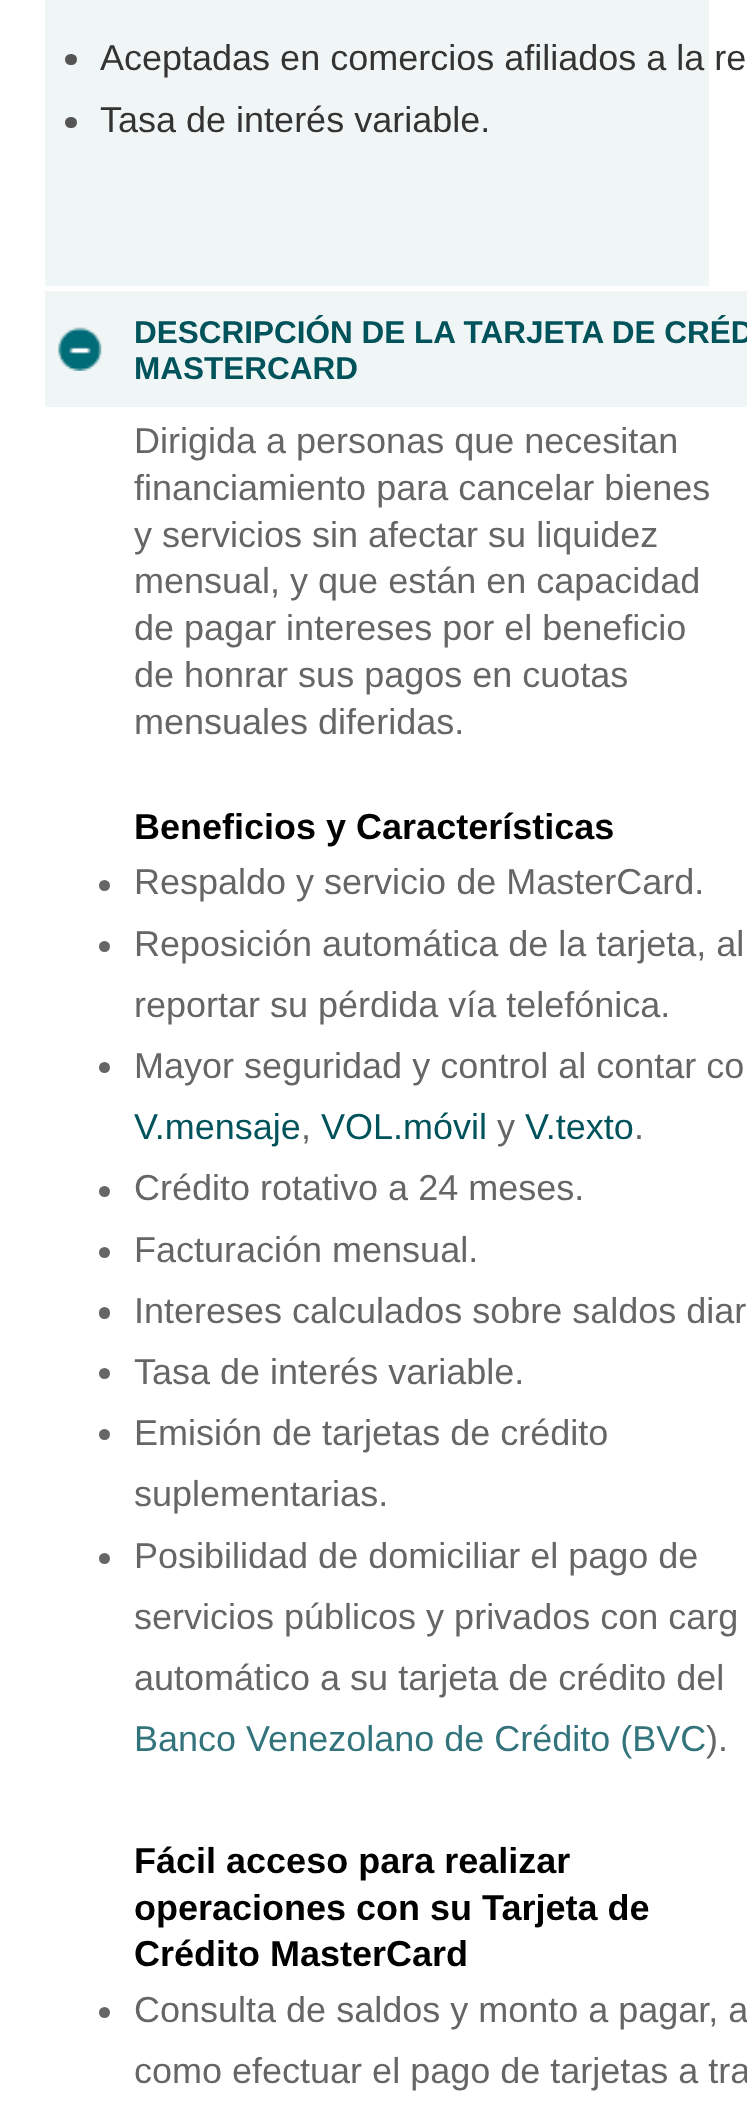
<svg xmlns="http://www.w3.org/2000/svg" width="753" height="2122">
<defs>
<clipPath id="clip1"><rect width="747" height="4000"/></clipPath>
<clipPath id="clip2"><rect x="45" y="407" width="702" height="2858"/></clipPath>
</defs>
<rect width="100%" height="100%" fill="#fff"/>
<rect x="45" width="664" height="286" fill="#f0f5f5"/>
<rect x="65" y="54" width="12" height="11" rx="5.5" fill="#555"/>
<text x="100" y="70" style="font-family:Liberation Sans;font-size:36px;fill:#333">Aceptadas en comercios afiliados a la re</text>
<rect x="65" y="117" width="12" height="11" rx="5.5" fill="#555"/>
<text x="100" y="132" style="font-family:Liberation Sans;font-size:36px;fill:#333">Tasa de interés variable.</text>
<rect x="45" y="291" width="702" height="116" fill="#f0f5f5"/>
<image x="58" y="327" width="44" height="44" href="media/1.png"/>
<g clip-path="url(#clip1)">
<text x="134" y="343" style="font-family:Liberation Sans;font-size:31.5px;font-weight:bold;fill:#00525b">DESCRIPCIÓN DE LA TARJETA DE CRÉD</text>
</g>
<text x="134" y="379" style="font-family:Liberation Sans;font-size:31.5px;font-weight:bold;fill:#00525b">MASTERCARD</text>
<text x="134" y="453" style="font-family:Liberation Sans;font-size:36px;fill:#666">Dirigida a personas que necesitan</text>
<text x="134" y="500" style="font-family:Liberation Sans;font-size:36px;fill:#666">financiamiento para cancelar bienes</text>
<text x="134" y="547" style="font-family:Liberation Sans;font-size:36px;fill:#666">y servicios sin afectar su liquidez</text>
<text x="134" y="593" style="font-family:Liberation Sans;font-size:36px;fill:#666">mensual, y que están en capacidad</text>
<text x="134" y="640" style="font-family:Liberation Sans;font-size:36px;fill:#666">de pagar intereses por el beneficio</text>
<text x="134" y="687" style="font-family:Liberation Sans;font-size:36px;fill:#666">de honrar sus pagos en cuotas</text>
<text x="134" y="734" style="font-family:Liberation Sans;font-size:36px;fill:#666">mensuales diferidas.</text>
<text x="134" y="839" style="font-family:Liberation Sans;font-size:36px;font-weight:bold;fill:#000">Beneficios y Características</text>
<circle cx="104.5" cy="885.5" r="5.5" fill="#666"/>
<text x="134" y="894" style="font-family:Liberation Sans;font-size:36px;fill:#666">Respaldo y servicio de MasterCard.</text>
<circle cx="104.5" cy="946.5" r="5.5" fill="#666"/>
<text x="134" y="956" style="font-family:Liberation Sans;font-size:36px;fill:#666">Reposición automática de la tarjeta, al</text>
<text x="134" y="1017" style="font-family:Liberation Sans;font-size:36px;fill:#666">reportar su pérdida vía telefónica.</text>
<circle cx="104.5" cy="1067.5" r="5.5" fill="#666"/>
<text x="134" y="1078" style="font-family:Liberation Sans;font-size:36px;fill:#666">Mayor seguridad y control al contar co</text>
<text x="134" y="1139" style="font-family:Liberation Sans;font-size:36px;fill:#00525b">V.mensaje</text>
<text x="301" y="1139" style="font-family:Liberation Sans;font-size:36px;fill:#666">,</text>
<text x="321" y="1139" style="font-family:Liberation Sans;font-size:36px;fill:#00525b">VOL.móvil</text>
<text x="497" y="1139" style="font-family:Liberation Sans;font-size:36px;fill:#666">y</text>
<text x="525" y="1139" style="font-family:Liberation Sans;font-size:36px;fill:#00525b">V.texto</text>
<text x="634" y="1139" style="font-family:Liberation Sans;font-size:36px;fill:#666">.</text>
<circle cx="104.5" cy="1191.5" r="5.5" fill="#666"/>
<text x="134" y="1200" style="font-family:Liberation Sans;font-size:36px;fill:#666">Crédito rotativo a 24 meses.</text>
<circle cx="104.5" cy="1252.5" r="5.5" fill="#666"/>
<text x="134" y="1262" style="font-family:Liberation Sans;font-size:36px;fill:#666">Facturación mensual.</text>
<rect x="99" y="1307" width="11" height="12" rx="5.5" fill="#666"/>
<text x="134" y="1323" style="font-family:Liberation Sans;font-size:36px;fill:#666">Intereses calculados sobre saldos diar</text>
<circle cx="104.5" cy="1373.5" r="5.5" fill="#666"/>
<text x="134" y="1384" style="font-family:Liberation Sans;font-size:36px;fill:#666">Tasa de interés variable.</text>
<circle cx="104.5" cy="1434.5" r="5.5" fill="#666"/>
<text x="134" y="1445" style="font-family:Liberation Sans;font-size:36px;fill:#666">Emisión de tarjetas de crédito</text>
<text x="134" y="1506" style="font-family:Liberation Sans;font-size:36px;fill:#666">suplementarias.</text>
<circle cx="104.5" cy="1558.5" r="5.5" fill="#666"/>
<text x="134" y="1568" style="font-family:Liberation Sans;font-size:36px;fill:#666">Posibilidad de domiciliar el pago de</text>
<text x="134" y="1629" style="font-family:Liberation Sans;font-size:36px;fill:#666">servicios públicos y privados con carg</text>
<text x="134" y="1690" style="font-family:Liberation Sans;font-size:36px;fill:#666">automático a su tarjeta de crédito del</text>
<text x="134" y="1751" style="font-family:Liberation Sans;font-size:36px;fill:#33747c">Banco Venezolano de Crédito (BVC</text>
<text x="706" y="1751" style="font-family:Liberation Sans;font-size:36px;fill:#666">).</text>
<text x="134" y="1873" style="font-family:Liberation Sans;font-size:36px;font-weight:bold;fill:#000">Fácil acceso para realizar</text>
<text x="134" y="1920" style="font-family:Liberation Sans;font-size:36px;font-weight:bold;fill:#000">operaciones con su Tarjeta de</text>
<text x="134" y="1966" style="font-family:Liberation Sans;font-size:36px;font-weight:bold;fill:#000">Crédito MasterCard</text>
<circle cx="104.5" cy="2012.5" r="5.5" fill="#666"/>
<g clip-path="url(#clip2)">
<text x="134" y="2022" style="font-family:Liberation Sans;font-size:36px;fill:#666">Consulta de saldos y monto a pagar, a</text>
<text x="134" y="2083" style="font-family:Liberation Sans;font-size:36px;fill:#666">como efectuar el pago de tarjetas a tra</text>
</g>
</svg>
